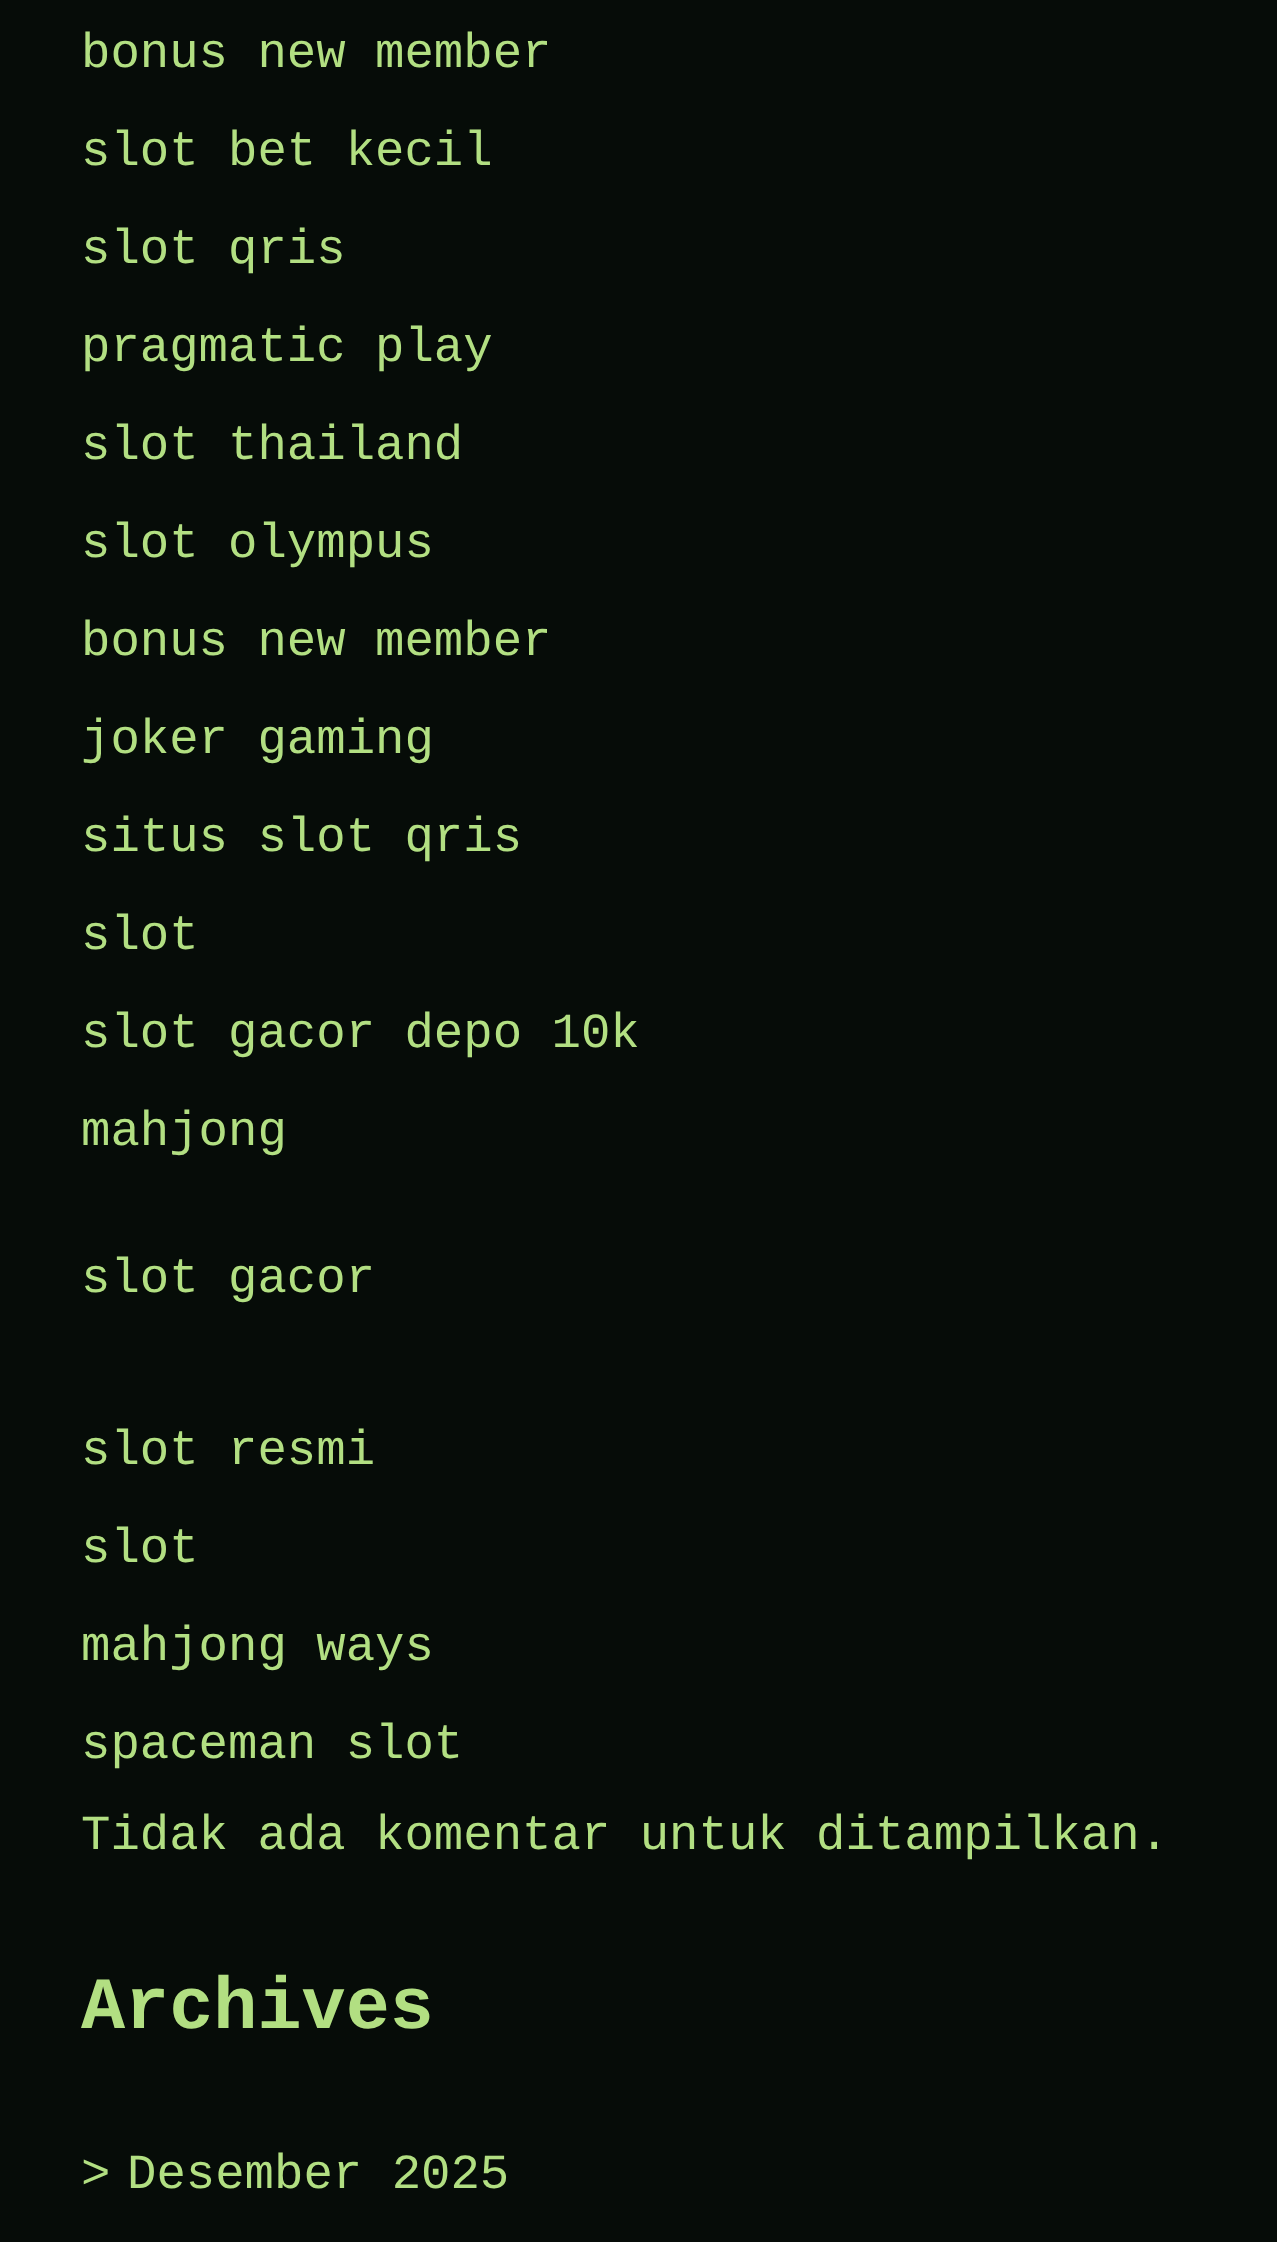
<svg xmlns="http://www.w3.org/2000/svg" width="1277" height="2242">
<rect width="100%" height="100%" fill="#060c08"/>
<text x="81" y="67" style="font-family:Liberation Mono;font-size:49px;fill:#b2df82">bonus new member</text>
<text x="81" y="165" style="font-family:Liberation Mono;font-size:49px;fill:#b2df82">slot bet kecil</text>
<text x="81" y="263" style="font-family:Liberation Mono;font-size:49px;fill:#b2df82">slot qris</text>
<text x="81" y="361" style="font-family:Liberation Mono;font-size:49px;fill:#b2df82">pragmatic play</text>
<text x="81" y="459" style="font-family:Liberation Mono;font-size:49px;fill:#b2df82">slot thailand</text>
<text x="81" y="557" style="font-family:Liberation Mono;font-size:49px;fill:#b2df82">slot olympus</text>
<text x="81" y="655" style="font-family:Liberation Mono;font-size:49px;fill:#b2df82">bonus new member</text>
<text x="81" y="753" style="font-family:Liberation Mono;font-size:49px;fill:#b2df82">joker gaming</text>
<text x="81" y="851" style="font-family:Liberation Mono;font-size:49px;fill:#b2df82">situs slot qris</text>
<text x="81" y="949" style="font-family:Liberation Mono;font-size:49px;fill:#b2df82">slot</text>
<text x="81" y="1047" style="font-family:Liberation Mono;font-size:49px;fill:#b2df82">slot gacor depo 10k</text>
<text x="81" y="1145" style="font-family:Liberation Mono;font-size:49px;fill:#b2df82">mahjong</text>
<text x="81" y="1292" style="font-family:Liberation Mono;font-size:49px;fill:#b2df82">slot gacor</text>
<text x="81" y="1464" style="font-family:Liberation Mono;font-size:49px;fill:#b2df82">slot resmi</text>
<text x="81" y="1562" style="font-family:Liberation Mono;font-size:49px;fill:#b2df82">slot</text>
<text x="81" y="1660" style="font-family:Liberation Mono;font-size:49px;fill:#b2df82">mahjong ways</text>
<text x="81" y="1758" style="font-family:Liberation Mono;font-size:49px;fill:#b2df82">spaceman slot</text>
<text x="81" y="1849" style="font-family:Liberation Mono;font-size:49px;fill:#b2df82">Tidak ada komentar untuk ditampilkan.</text>
<text x="81" y="2028" style="font-family:Liberation Mono;font-size:73.5px;font-weight:bold;fill:#b2df82">Archives</text>
<text x="81" y="2188" style="font-family:Liberation Mono;font-size:49px;fill:#b2df82">&gt;</text>
<text x="127" y="2188" style="font-family:Liberation Mono;font-size:49px;fill:#b2df82">Desember 2025</text>
</svg>
